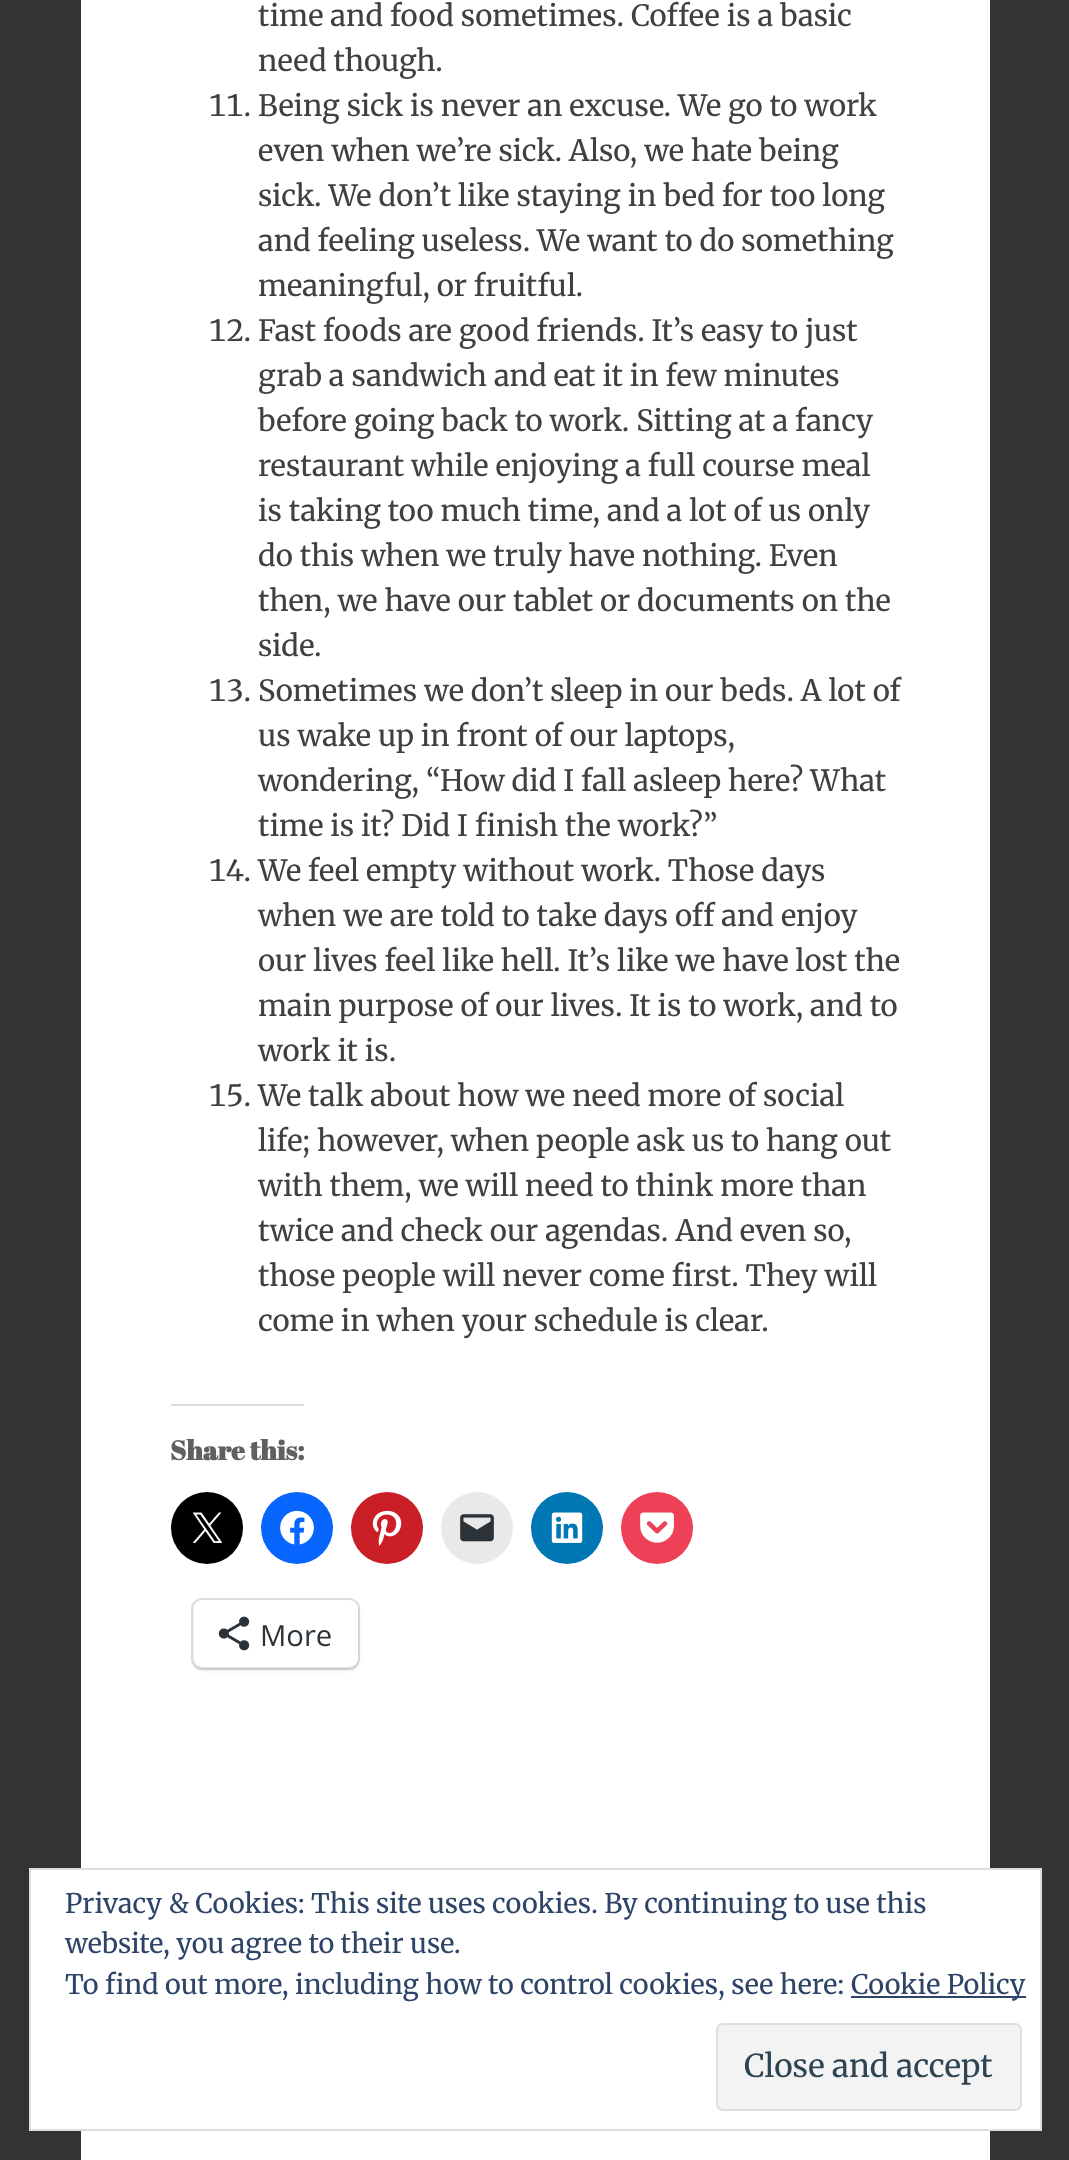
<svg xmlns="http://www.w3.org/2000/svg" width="1069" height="2160">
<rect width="100%" height="100%" fill="#333"/>
<rect x="81" width="909" height="2160" fill="#fff"/>
<text x="258" y="26" style="font-family:Merriweather;font-size:29.25px;fill:#404040">time and food sometimes. Coffee is a basic</text>
<text x="258" y="71" style="font-family:Merriweather;font-size:29.25px;fill:#404040">need though.</text>
<text x="209" y="116" style="font-family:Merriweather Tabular;font-size:29.25px;fill:#404040">11.</text>
<text x="258" y="116" style="font-family:Merriweather;font-size:29.25px;fill:#404040">Being sick is never an excuse. We go to work</text>
<text x="258" y="161" style="font-family:Merriweather;font-size:29.25px;fill:#404040">even when we’re sick. Also, we hate being</text>
<text x="258" y="206" style="font-family:Merriweather;font-size:29.25px;fill:#404040">sick. We don’t like staying in bed for too long</text>
<text x="258" y="251" style="font-family:Merriweather;font-size:29.25px;fill:#404040">and feeling useless. We want to do something</text>
<text x="258" y="296" style="font-family:Merriweather;font-size:29.25px;fill:#404040">meaningful, or fruitful.</text>
<text x="209" y="341" style="font-family:Merriweather Tabular;font-size:29.25px;fill:#404040">12.</text>
<text x="258" y="341" style="font-family:Merriweather;font-size:29.25px;fill:#404040">Fast foods are good friends. It’s easy to just</text>
<text x="258" y="386" style="font-family:Merriweather;font-size:29.25px;fill:#404040">grab a sandwich and eat it in few minutes</text>
<text x="258" y="431" style="font-family:Merriweather;font-size:29.25px;fill:#404040">before going back to work. Sitting at a fancy</text>
<text x="258" y="476" style="font-family:Merriweather;font-size:29.25px;fill:#404040">restaurant while enjoying a full course meal</text>
<text x="258" y="521" style="font-family:Merriweather;font-size:29.25px;fill:#404040">is taking too much time, and a lot of us only</text>
<text x="258" y="566" style="font-family:Merriweather;font-size:29.25px;fill:#404040">do this when we truly have nothing. Even</text>
<text x="258" y="611" style="font-family:Merriweather;font-size:29.25px;fill:#404040">then, we have our tablet or documents on the</text>
<text x="258" y="656" style="font-family:Merriweather;font-size:29.25px;fill:#404040">side.</text>
<text x="209" y="701" style="font-family:Merriweather Tabular;font-size:29.25px;fill:#404040">13.</text>
<text x="258" y="701" style="font-family:Merriweather;font-size:29.25px;fill:#404040">Sometimes we don’t sleep in our beds. A lot of</text>
<text x="258" y="746" style="font-family:Merriweather;font-size:29.25px;fill:#404040">us wake up in front of our laptops,</text>
<text x="258" y="791" style="font-family:Merriweather;font-size:29.25px;fill:#404040">wondering, “How did I fall asleep here? What</text>
<text x="258" y="836" style="font-family:Merriweather;font-size:29.25px;fill:#404040">time is it? Did I finish the work?”</text>
<text x="209" y="881" style="font-family:Merriweather Tabular;font-size:29.25px;fill:#404040">14.</text>
<text x="258" y="881" style="font-family:Merriweather;font-size:29.25px;fill:#404040">We feel empty without work. Those days</text>
<text x="258" y="926" style="font-family:Merriweather;font-size:29.25px;fill:#404040">when we are told to take days off and enjoy</text>
<text x="258" y="971" style="font-family:Merriweather;font-size:29.25px;fill:#404040">our lives feel like hell. It’s like we have lost the</text>
<text x="258" y="1016" style="font-family:Merriweather;font-size:29.25px;fill:#404040">main purpose of our lives. It is to work, and to</text>
<text x="258" y="1061" style="font-family:Merriweather;font-size:29.25px;fill:#404040">work it is.</text>
<text x="209" y="1106" style="font-family:Merriweather Tabular;font-size:29.25px;fill:#404040">15.</text>
<text x="258" y="1106" style="font-family:Merriweather;font-size:29.25px;fill:#404040">We talk about how we need more of social</text>
<text x="258" y="1151" style="font-family:Merriweather;font-size:29.25px;fill:#404040">life; however, when people ask us to hang out</text>
<text x="258" y="1196" style="font-family:Merriweather;font-size:29.25px;fill:#404040">with them, we will need to think more than</text>
<text x="258" y="1241" style="font-family:Merriweather;font-size:29.25px;fill:#404040">twice and check our agendas. And even so,</text>
<text x="258" y="1286" style="font-family:Merriweather;font-size:29.25px;fill:#404040">those people will never come first. They will</text>
<text x="258" y="1331" style="font-family:Merriweather;font-size:29.25px;fill:#404040">come in when your schedule is clear.</text>
<rect x="171" y="1404" width="133" height="2" fill="#dcdcde"/>
<text x="170" y="1460" style="font-family:Abril Fatface;font-size:27px;font-weight:bold;fill:#606060">Share this:</text>
<circle cx="207" cy="1528" r="36" fill="#000"/>
<image x="192" y="1512" width="31" height="31" href="media/1.png"/>
<circle cx="297" cy="1528" r="36" fill="#0866ff"/>
<image x="280" y="1510" width="34" height="35" href="media/2.png"/>
<circle cx="387" cy="1528" r="36" fill="#ca1f27"/>
<image x="372" y="1510" width="30" height="36" href="media/3.png"/>
<circle cx="477" cy="1528" r="36" fill="#e9e9e9"/>
<image x="460" y="1514" width="34" height="28" href="media/4.png"/>
<circle cx="567" cy="1528" r="36" fill="#0077b5"/>
<image x="551" y="1512" width="32" height="31" href="media/5.png"/>
<circle cx="657" cy="1528" r="36" fill="#ee4056"/>
<image x="640" y="1512" width="34" height="31" href="media/6.png"/>
<rect x="192" y="1599" width="167" height="70" rx="10" fill="none" stroke="#e0e0e0" stroke-width="2"/>
<rect x="194" y="1602" width="164" height="68" rx="9" fill="#0000001f" filter="blur(2px)"/>
<rect x="194" y="1600" width="164" height="67" rx="9" fill="#fff"/>
<image x="218" y="1616" width="32" height="35" href="media/7.png"/>
<text x="260" y="1646" style="font-family:Open Sans;font-size:29.25px;fill:#2c3338">More</text>
<rect x="30" y="1869" width="1011" height="261" fill="#fff" stroke="#dedede" stroke-width="2"/>
<text x="65" y="1913" style="font-family:Merriweather;font-size:27px;fill:#2e4467">Privacy &amp; Cookies: This site uses cookies. By continuing to use this</text>
<text x="65" y="1953" style="font-family:Merriweather;font-size:27px;fill:#2e4467">website, you agree to their use.</text>
<text x="65" y="1994" style="font-family:Merriweather;font-size:27px;fill:#2e4467">To find out more, including how to control cookies, see here:</text>
<rect x="851" y="1996" width="175" height="2" fill="#2e4467"/>
<text x="851" y="1994" style="font-family:Merriweather;font-size:27px;fill:#2e4467">Cookie Policy</text>
<rect x="717" y="2024" width="304" height="86" rx="6" fill="#f3f3f3" stroke="#dedede" stroke-width="2"/>
<text x="744" y="2077" style="font-family:Merriweather;font-size:31.5px;fill:#2e4453">Close and accept</text>
</svg>
